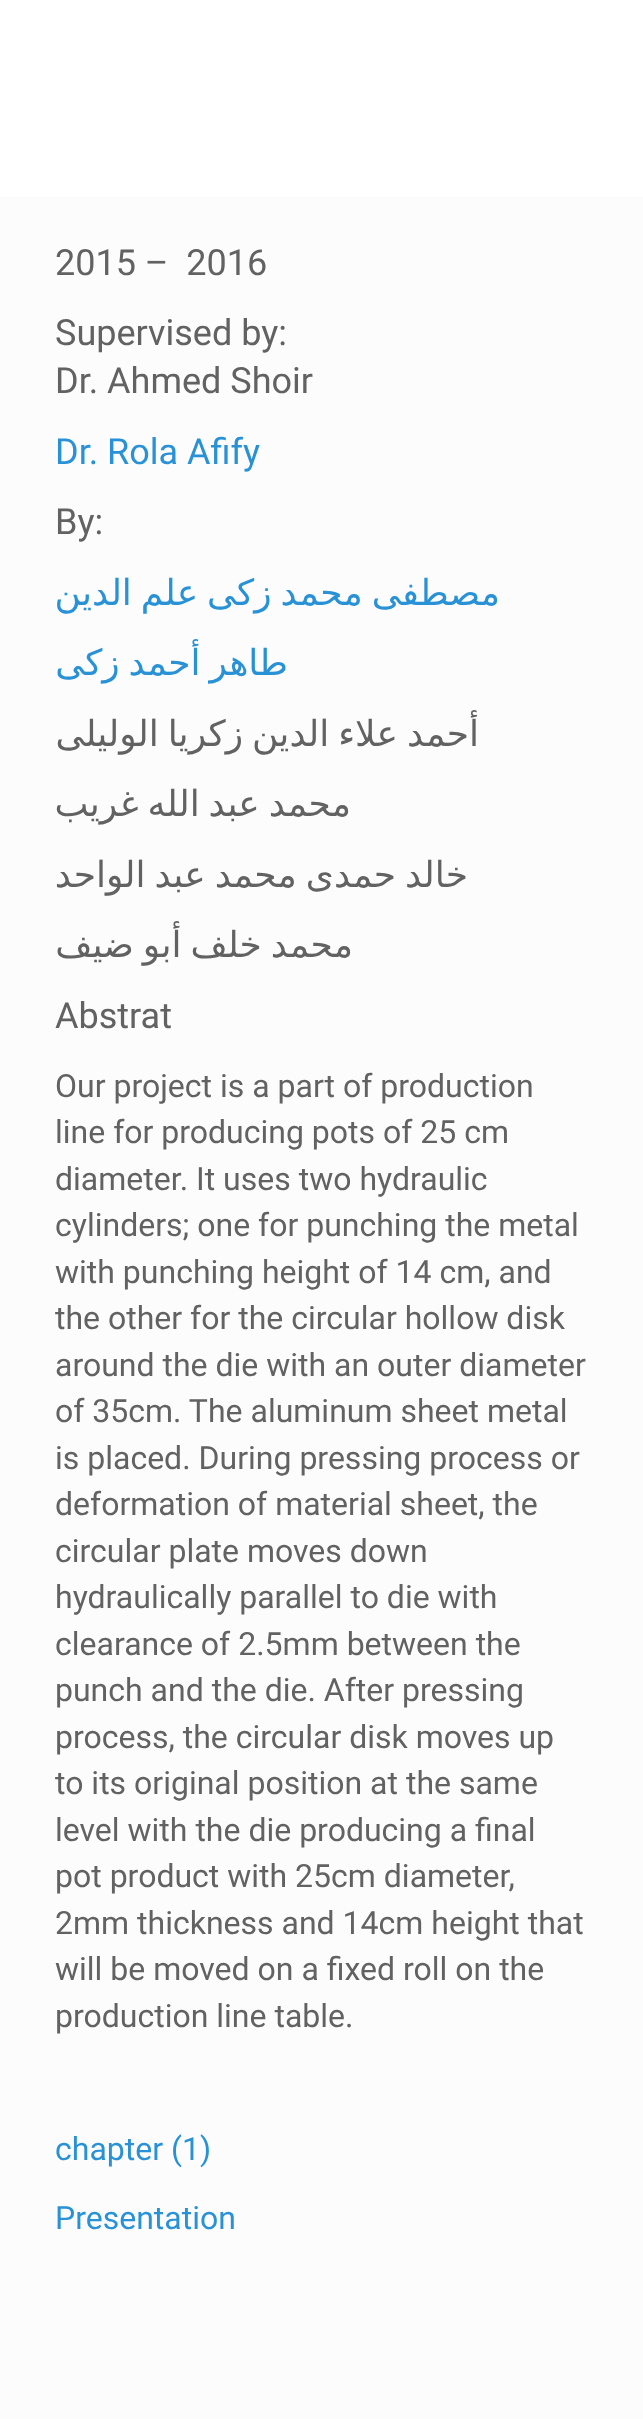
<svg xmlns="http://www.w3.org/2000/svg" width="643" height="2419">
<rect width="100%" height="100%" fill="#fcfcfc"/>
<rect width="643" height="197" fill="#fff"/>
<text x="55" y="275" style="font-family:Roboto;font-size:36px;fill:#626262" xml:space="preserve">2015 –  2016</text>
<text x="55" y="345" style="font-family:Roboto;font-size:36px;fill:#626262">Supervised by:</text>
<text x="55" y="393" style="font-family:Roboto;font-size:36px;fill:#626262">Dr. Ahmed Shoir</text>
<text x="55" y="464" style="font-family:Roboto;font-size:36px;fill:#2991d6">Dr. Rola Afify</text>
<text x="55" y="534" style="font-family:Roboto;font-size:36px;fill:#626262">By:</text>
<text x="500" y="605" word-spacing="-2.5" style="font-family:DejaVu Sans;font-size:36px;direction:rtl;fill:#2991d6">مصطفى محمد زكى علم الدين</text>
<text x="288" y="675" word-spacing="-2.5" style="font-family:DejaVu Sans;font-size:36px;direction:rtl;fill:#2991d6">طاهر أحمد زكى</text>
<text x="479" y="746" word-spacing="-2.5" style="font-family:DejaVu Sans;font-size:36px;direction:rtl;fill:#626262">أحمد علاء الدين زكريا الوليلى</text>
<text x="351" y="816" word-spacing="-2.5" style="font-family:DejaVu Sans;font-size:36px;direction:rtl;fill:#626262">محمد عبد الله غريب</text>
<text x="468" y="887" word-spacing="-2.5" style="font-family:DejaVu Sans;font-size:36px;direction:rtl;fill:#626262">خالد حمدى محمد عبد الواحد</text>
<text x="353" y="957" word-spacing="-2.5" style="font-family:DejaVu Sans;font-size:36px;direction:rtl;fill:#626262">محمد خلف أبو ضيف</text>
<text x="55" y="1028" style="font-family:Roboto;font-size:36px;fill:#626262">Abstrat</text>
<text x="55" y="1097" style="font-family:Roboto;font-size:32px;fill:#626262">Our project is a part of production</text>
<text x="55" y="1143" style="font-family:Roboto;font-size:32px;fill:#626262">line for producing pots of 25 cm</text>
<text x="55" y="1190" style="font-family:Roboto;font-size:32px;fill:#626262">diameter. It uses two hydraulic</text>
<text x="55" y="1236" style="font-family:Roboto;font-size:32px;fill:#626262">cylinders; one for punching the metal</text>
<text x="55" y="1283" style="font-family:Roboto;font-size:32px;fill:#626262">with punching height of 14 cm, and</text>
<text x="55" y="1329" style="font-family:Roboto;font-size:32px;fill:#626262">the other for the circular hollow disk</text>
<text x="55" y="1376" style="font-family:Roboto;font-size:32px;fill:#626262">around the die with an outer diameter</text>
<text x="55" y="1422" style="font-family:Roboto;font-size:32px;fill:#626262">of 35cm. The aluminum sheet metal</text>
<text x="55" y="1469" style="font-family:Roboto;font-size:32px;fill:#626262">is placed. During pressing process or</text>
<text x="55" y="1515" style="font-family:Roboto;font-size:32px;fill:#626262">deformation of material sheet, the</text>
<text x="55" y="1562" style="font-family:Roboto;font-size:32px;fill:#626262">circular plate moves down</text>
<text x="55" y="1608" style="font-family:Roboto;font-size:32px;fill:#626262">hydraulically parallel to die with</text>
<text x="55" y="1655" style="font-family:Roboto;font-size:32px;fill:#626262">clearance of 2.5mm between the</text>
<text x="55" y="1701" style="font-family:Roboto;font-size:32px;fill:#626262">punch and the die. After pressing</text>
<text x="55" y="1748" style="font-family:Roboto;font-size:32px;fill:#626262">process, the circular disk moves up</text>
<text x="55" y="1794" style="font-family:Roboto;font-size:32px;fill:#626262">to its original position at the same</text>
<text x="55" y="1841" style="font-family:Roboto;font-size:32px;fill:#626262">level with the die producing a final</text>
<text x="55" y="1887" style="font-family:Roboto;font-size:32px;fill:#626262">pot product with 25cm diameter,</text>
<text x="55" y="1934" style="font-family:Roboto;font-size:32px;fill:#626262">2mm thickness and 14cm height that</text>
<text x="55" y="1980" style="font-family:Roboto;font-size:32px;fill:#626262">will be moved on a fixed roll on the</text>
<text x="55" y="2027" style="font-family:Roboto;font-size:32px;fill:#626262">production line table.</text>
<text x="55" y="2160" style="font-family:Roboto;font-size:32px;fill:#2991d6">chapter (1)</text>
<text x="55" y="2229" style="font-family:Roboto;font-size:32px;fill:#2991d6">Presentation</text>
</svg>
